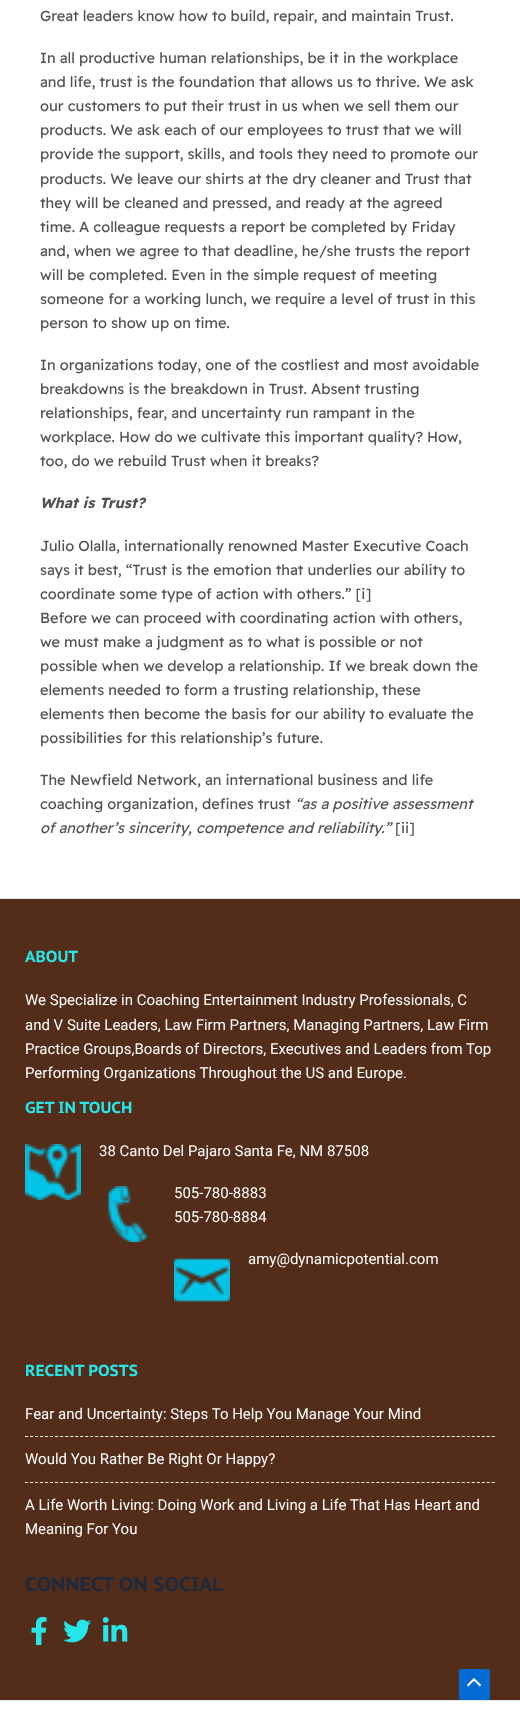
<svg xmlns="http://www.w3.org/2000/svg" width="520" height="1730">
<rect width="100%" height="100%" fill="#fff"/>
<text x="40" y="21" style="font-family:Readex Pro;font-size:14.6px;fill:#515151">Great leaders know how to build, repair, and maintain Trust.</text>
<text x="40" y="63" style="font-family:Readex Pro;font-size:14.6px;fill:#515151">In all productive human relationships, be it in the workplace</text>
<text x="40" y="87" style="font-family:Readex Pro;font-size:14.6px;fill:#515151">and life, trust is the foundation that allows us to thrive. We ask</text>
<text x="40" y="111" style="font-family:Readex Pro;font-size:14.6px;fill:#515151">our customers to put their trust in us when we sell them our</text>
<text x="40" y="135" style="font-family:Readex Pro;font-size:14.6px;fill:#515151">products. We ask each of our employees to trust that we will</text>
<text x="40" y="159" style="font-family:Readex Pro;font-size:14.6px;fill:#515151">provide the support, skills, and tools they need to promote our</text>
<text x="40" y="184" style="font-family:Readex Pro;font-size:14.6px;fill:#515151">products. We leave our shirts at the dry cleaner and Trust that</text>
<text x="40" y="208" style="font-family:Readex Pro;font-size:14.6px;fill:#515151">they will be cleaned and pressed, and ready at the agreed</text>
<text x="40" y="232" style="font-family:Readex Pro;font-size:14.6px;fill:#515151">time. A colleague requests a report be completed by Friday</text>
<text x="40" y="256" style="font-family:Readex Pro;font-size:14.6px;fill:#515151">and, when we agree to that deadline, he/she trusts the report</text>
<text x="40" y="280" style="font-family:Readex Pro;font-size:14.6px;fill:#515151">will be completed. Even in the simple request of meeting</text>
<text x="40" y="304" style="font-family:Readex Pro;font-size:14.6px;fill:#515151">someone for a working lunch, we require a level of trust in this</text>
<text x="40" y="328" style="font-family:Readex Pro;font-size:14.6px;fill:#515151">person to show up on time.</text>
<text x="40" y="370" style="font-family:Readex Pro;font-size:14.6px;fill:#515151">In organizations today, one of the costliest and most avoidable</text>
<text x="40" y="394" style="font-family:Readex Pro;font-size:14.6px;fill:#515151">breakdowns is the breakdown in Trust. Absent trusting</text>
<text x="40" y="418" style="font-family:Readex Pro;font-size:14.6px;fill:#515151">relationships, fear, and uncertainty run rampant in the</text>
<text x="40" y="442" style="font-family:Readex Pro;font-size:14.6px;fill:#515151">workplace. How do we cultivate this important quality? How,</text>
<text x="40" y="466" style="font-family:Readex Pro;font-size:14.6px;fill:#515151">too, do we rebuild Trust when it breaks?</text>
<text x="40" y="508" style="font-family:Readex Pro;font-size:14.6px;font-weight:bold;font-style:italic;fill:#515151">What is Trust?</text>
<text x="40" y="551" style="font-family:Readex Pro;font-size:14.6px;fill:#515151">Julio Olalla, internationally renowned Master Executive Coach</text>
<text x="40" y="575" style="font-family:Readex Pro;font-size:14.6px;fill:#515151">says it best, “Trust is the emotion that underlies our ability to</text>
<text x="40" y="599" style="font-family:Readex Pro;font-size:14.6px;fill:#515151">coordinate some type of action with others.” [i]</text>
<text x="40" y="623" style="font-family:Readex Pro;font-size:14.6px;fill:#515151">Before we can proceed with coordinating action with others,</text>
<text x="40" y="647" style="font-family:Readex Pro;font-size:14.6px;fill:#515151">we must make a judgment as to what is possible or not</text>
<text x="40" y="671" style="font-family:Readex Pro;font-size:14.6px;fill:#515151">possible when we develop a relationship. If we break down the</text>
<text x="40" y="695" style="font-family:Readex Pro;font-size:14.6px;fill:#515151">elements needed to form a trusting relationship, these</text>
<text x="40" y="719" style="font-family:Readex Pro;font-size:14.6px;fill:#515151">elements then become the basis for our ability to evaluate the</text>
<text x="40" y="743" style="font-family:Readex Pro;font-size:14.6px;fill:#515151">possibilities for this relationship’s future.</text>
<text x="40" y="785" style="font-family:Readex Pro;font-size:14.6px;fill:#515151">The Newfield Network, an international business and life</text>
<text x="40" y="809" style="font-family:Readex Pro;font-size:14.6px;fill:#515151">coaching organization, defines trust</text>
<text x="295" y="809" style="font-family:Readex Pro;font-size:14.6px;font-style:italic;fill:#515151">“as a positive assessment</text>
<text x="40" y="833" style="font-family:Readex Pro;font-size:14.6px;font-style:italic;fill:#515151">of another’s sincerity, competence and reliability.”</text>
<text x="395" y="833" style="font-family:Readex Pro;font-size:14.6px;fill:#515151">[ii]</text>
<rect y="899" width="520" height="801" fill="#532d1a"/>
<rect y="898" width="520" height="1" fill="#e2e8f0"/>
<text x="25" y="962" style="font-family:PT Sans Caption;font-size:16px;font-weight:bold;fill:#25e6e9">ABOUT</text>
<text x="25" y="1005" style="font-family:Roboto;font-size:15px;fill:#fff">We Specialize in Coaching Entertainment Industry Professionals, C</text>
<text x="25" y="1030" style="font-family:Roboto;font-size:15px;fill:#fff">and V Suite Leaders, Law Firm Partners, Managing Partners, Law Firm</text>
<text x="25" y="1054" style="font-family:Roboto;font-size:15px;fill:#fff">Practice Groups,Boards of Directors, Executives and Leaders from Top</text>
<text x="25" y="1078" style="font-family:Roboto;font-size:15px;fill:#fff">Performing Organizations Throughout the US and Europe.</text>
<text x="25" y="1113" style="font-family:PT Sans Caption;font-size:16px;font-weight:bold;fill:#25e6e9">GET IN TOUCH</text>
<image x="25" y="1144" width="56" height="56" href="media/1.png"/>
<text x="99" y="1156" style="font-family:Roboto;font-size:15px;fill:#fff">38 Canto Del Pajaro Santa Fe, NM 87508</text>
<image x="107" y="1186" width="41" height="56" href="media/2.png"/>
<text x="174" y="1198" style="font-family:Roboto;font-size:15px;fill:#fff">505-780-8883</text>
<text x="174" y="1222" style="font-family:Roboto;font-size:15px;fill:#fff">505-780-8884</text>
<image x="174" y="1258" width="56" height="44" href="media/3.png"/>
<text x="248" y="1264" style="font-family:Roboto;font-size:15px;fill:#fff">amy@dynamicpotential.com</text>
<text x="25" y="1376" style="font-family:PT Sans Caption;font-size:16px;font-weight:bold;fill:#25e6e9">RECENT POSTS</text>
<path d="M25 1436.5h470" fill="none" stroke="#fff" stroke-dasharray="3 2.02"/>
<text x="25" y="1419" style="font-family:Roboto;font-size:15px;fill:#fff">Fear and Uncertainty: Steps To Help You Manage Your Mind</text>
<path d="M25 1482.5h470" fill="none" stroke="#fff" stroke-dasharray="3 2.02"/>
<text x="25" y="1464" style="font-family:Roboto;font-size:15px;fill:#fff">Would You Rather Be Right Or Happy?</text>
<text x="25" y="1510" style="font-family:Roboto;font-size:15px;fill:#fff">A Life Worth Living: Doing Work and Living a Life That Has Heart and</text>
<text x="25" y="1534" style="font-family:Roboto;font-size:15px;fill:#fff">Meaning For You</text>
<text x="25" y="1591" style="font-family:PT Sans Caption;font-size:20px;font-weight:bold;fill:#1e293b">CONNECT ON SOCIAL</text>
<image x="31" y="1617" width="16" height="28" href="media/4.png"/>
<image x="63" y="1619" width="28" height="24" href="media/5.png"/>
<image x="102" y="1617" width="26" height="25" href="media/6.png"/>
<rect y="1700" width="520" height="1" fill="#e2e8f0"/>
<rect x="459" y="1669" width="31" height="31" rx="2" fill="#046bd2"/>
<image x="467" y="1678" width="15" height="9" href="media/7.png"/>
</svg>
